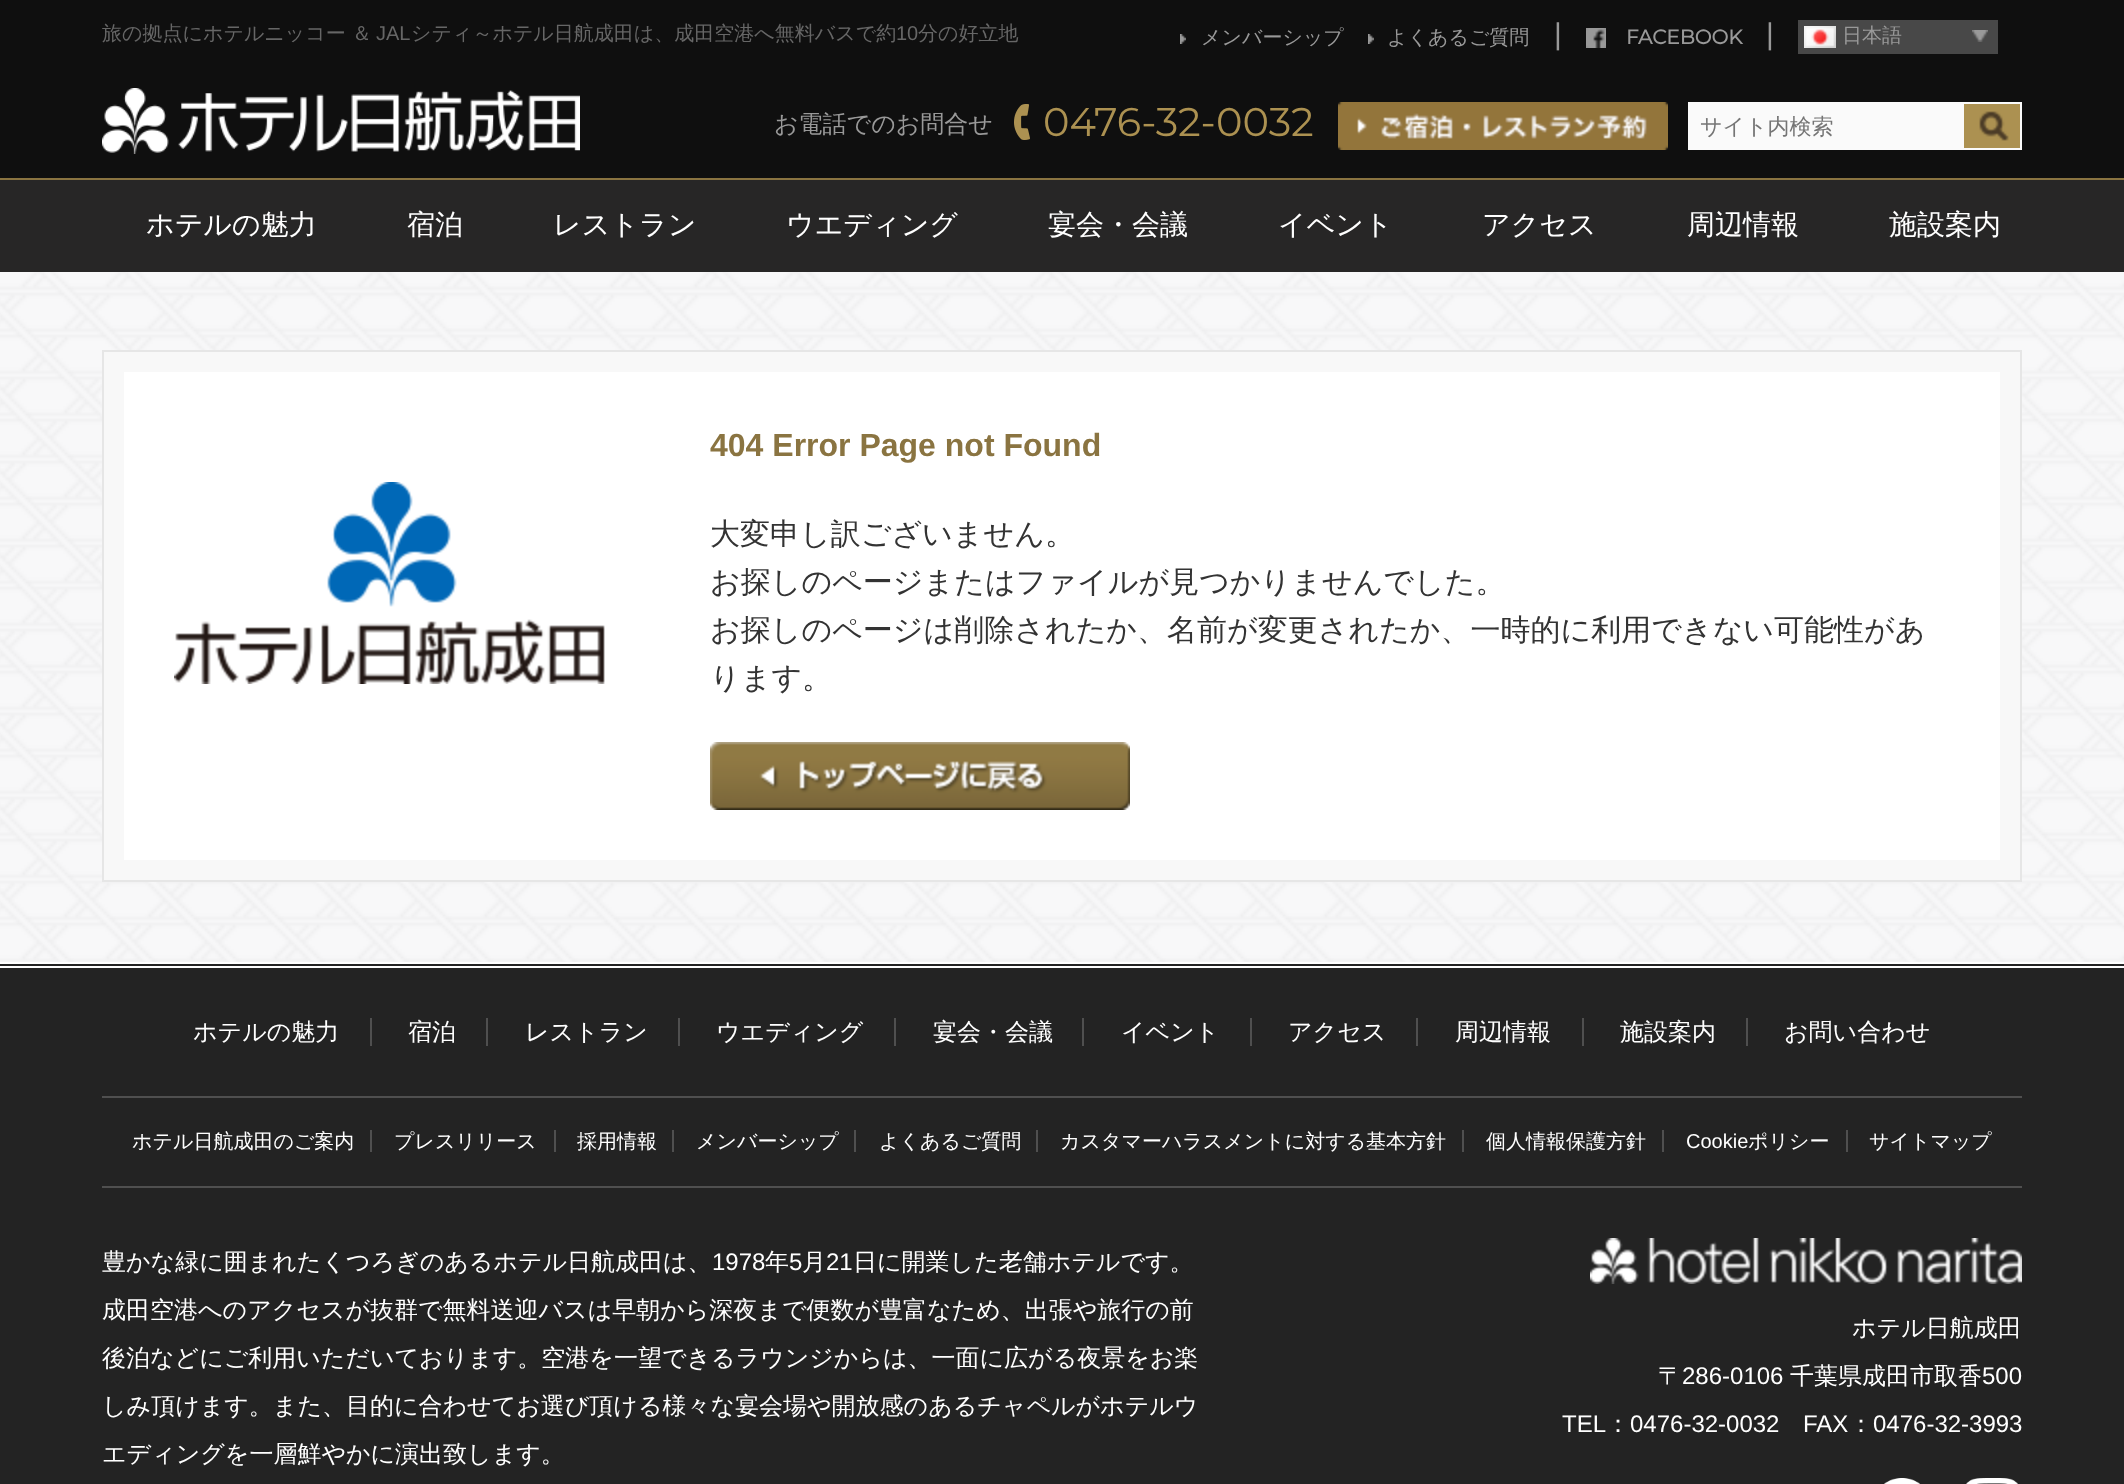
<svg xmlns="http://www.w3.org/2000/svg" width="2124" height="1484">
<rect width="100%" height="100%" fill="#fff"/>
<rect width="2124" height="178" fill="#0f0f0f"/>
<rect y="178" width="2124" height="2" fill="#8a7441"/>
<text x="102" y="40" style="font-family:WenQuanYi Zen Hei;font-size:20px;font-weight:500;fill:#666">旅の拠点にホテルニッコー ＆</text>
<text x="376" y="40" style="font-family:Liberation Sans;font-size:20px;fill:#666">JAL</text>
<text x="411" y="40" style="font-family:WenQuanYi Zen Hei;font-size:20px;font-weight:500;fill:#666">シティ～ホテル日航成田は、成田空港へ無料バスで約</text>
<text x="896" y="40" style="font-family:Liberation Sans;font-size:20px;fill:#666">10</text>
<text x="918" y="40" style="font-family:WenQuanYi Zen Hei;font-size:20px;font-weight:500;fill:#666">分の好立地</text>
<image x="1180" y="34" width="6" height="10" href="media/1.png"/>
<text x="1201" y="44" style="font-family:WenQuanYi Zen Hei;font-size:20px;font-weight:500;fill:#999">メンバーシップ</text>
<image x="1368" y="34" width="6" height="10" href="media/1.png"/>
<text x="1387" y="44" style="font-family:WenQuanYi Zen Hei;font-size:20px;font-weight:500;fill:#999">よくあるご質問</text>
<text x="1554" y="44" style="font-family:Liberation Sans;font-size:30px;fill:#999">|</text>
<image x="1586" y="28" width="20" height="20" href="media/2.png"/>
<text x="1626" y="44" style="font-family:Montserrat;font-size:20px;font-weight:bold;fill:#999">FACEBOOK</text>
<text x="1766" y="44" style="font-family:Liberation Sans;font-size:30px;fill:#999">|</text>
<rect x="1798" y="20" width="200" height="34" fill="#484848"/>
<image x="1804" y="26" width="32" height="22" href="media/3.png"/>
<text x="1842" y="42" style="font-family:WenQuanYi Zen Hei;font-size:20px;font-weight:500;fill:#999">日本語</text>
<image x="1972" y="30" width="16" height="12" href="media/4.png"/>
<image x="102" y="88" width="478" height="66" href="media/5.png"/>
<text x="774" y="132" style="font-family:WenQuanYi Zen Hei;font-size:24px;font-weight:500;fill:#999">お電話でのお問合せ</text>
<image x="1014" y="104" width="16" height="36" href="media/6.png"/>
<text x="1043" y="136" style="font-family:Montserrat;font-size:40px;font-weight:100;fill:#ac9151">0476-32-0032</text>
<image x="1338" y="102" width="330" height="48" href="media/7.png"/>
<rect x="1688" y="102" width="334" height="48" fill="#fafafa"/>
<text x="1700" y="134" style="font-family:WenQuanYi Zen Hei;font-size:22px;font-weight:500;fill:#757575">サイト内検索</text>
<image x="1964" y="104" width="56" height="44" href="media/8.png"/>
<rect y="180" width="2124" height="92" fill="#272626"/>
<text x="146" y="234" style="font-family:WenQuanYi Zen Hei;font-size:28px;font-weight:500;fill:#fff">ホテルの魅力</text>
<text x="407" y="234" style="font-family:WenQuanYi Zen Hei;font-size:28px;font-weight:500;fill:#fff">宿泊</text>
<text x="553" y="234" style="font-family:WenQuanYi Zen Hei;font-size:28px;font-weight:500;fill:#fff">レストラン</text>
<text x="786" y="234" style="font-family:WenQuanYi Zen Hei;font-size:28px;font-weight:500;fill:#fff">ウエディング</text>
<text x="1048" y="234" style="font-family:WenQuanYi Zen Hei;font-size:28px;font-weight:500;fill:#fff">宴会・会議</text>
<text x="1278" y="234" style="font-family:WenQuanYi Zen Hei;font-size:28px;font-weight:500;fill:#fff">イベント</text>
<text x="1482" y="234" style="font-family:WenQuanYi Zen Hei;font-size:28px;font-weight:500;fill:#fff">アクセス</text>
<text x="1687" y="234" style="font-family:WenQuanYi Zen Hei;font-size:28px;font-weight:500;fill:#fff">周辺情報</text>
<text x="1889" y="234" style="font-family:WenQuanYi Zen Hei;font-size:28px;font-weight:500;fill:#fff">施設案内</text>
<image x="0" y="272" width="2124" height="690" href="media/9.png"/>
<rect x="103" y="351" width="1918" height="530" fill="#f8f8f8" stroke="#e6e6e6" stroke-width="2"/>
<rect x="124" y="372" width="1876" height="488" fill="#fff"/>
<image x="174" y="482" width="431" height="202" href="media/10.png"/>
<text x="710" y="456" style="font-family:Liberation Sans;font-size:32px;font-weight:bold;fill:#8a7441">404 Error Page not Found</text>
<text x="710" y="544" style="font-family:WenQuanYi Zen Hei;font-size:30px;font-weight:500;fill:#333">大変申し訳ございません。</text>
<text x="710" y="592" style="font-family:WenQuanYi Zen Hei;font-size:30px;font-weight:500;fill:#333">お探しのページまたはファイルが見つかりませんでした。</text>
<text x="710" y="640" style="font-family:WenQuanYi Zen Hei;font-size:30px;font-weight:500;fill:#333">お探しのページは削除されたか、名前が変更されたか、一時的に利用できない可能性があ</text>
<text x="710" y="688" style="font-family:WenQuanYi Zen Hei;font-size:30px;font-weight:500;fill:#333">ります。</text>
<image x="710" y="742" width="420" height="68" href="media/11.png"/>
<rect y="964" width="2124" height="520" fill="#232323"/>
<rect y="966" width="2124" height="2" fill="#fff"/>
<rect x="102" y="1096" width="1920" height="2" fill="#4f4f4f"/>
<text x="193" y="1040" style="font-family:WenQuanYi Zen Hei;font-size:24px;font-weight:500;fill:#fff">ホテルの魅力</text>
<rect x="370" y="1018" width="2" height="28" fill="#4f4f4f"/>
<text x="408" y="1040" style="font-family:WenQuanYi Zen Hei;font-size:24px;font-weight:500;fill:#fff">宿泊</text>
<rect x="486" y="1018" width="2" height="28" fill="#4f4f4f"/>
<text x="525" y="1040" style="font-family:WenQuanYi Zen Hei;font-size:24px;font-weight:500;fill:#fff">レストラン</text>
<rect x="678" y="1018" width="2" height="28" fill="#4f4f4f"/>
<text x="716" y="1040" style="font-family:WenQuanYi Zen Hei;font-size:24px;font-weight:500;fill:#fff">ウエディング</text>
<rect x="894" y="1018" width="2" height="28" fill="#4f4f4f"/>
<text x="933" y="1040" style="font-family:WenQuanYi Zen Hei;font-size:24px;font-weight:500;fill:#fff">宴会・会議</text>
<rect x="1082" y="1018" width="2" height="28" fill="#4f4f4f"/>
<text x="1121" y="1040" style="font-family:WenQuanYi Zen Hei;font-size:24px;font-weight:500;fill:#fff">イベント</text>
<rect x="1250" y="1018" width="2" height="28" fill="#4f4f4f"/>
<text x="1288" y="1040" style="font-family:WenQuanYi Zen Hei;font-size:24px;font-weight:500;fill:#fff">アクセス</text>
<rect x="1416" y="1018" width="2" height="28" fill="#4f4f4f"/>
<text x="1455" y="1040" style="font-family:WenQuanYi Zen Hei;font-size:24px;font-weight:500;fill:#fff">周辺情報</text>
<rect x="1582" y="1018" width="2" height="28" fill="#4f4f4f"/>
<text x="1620" y="1040" style="font-family:WenQuanYi Zen Hei;font-size:24px;font-weight:500;fill:#fff">施設案内</text>
<rect x="1746" y="1018" width="2" height="28" fill="#4f4f4f"/>
<text x="1784" y="1040" style="font-family:WenQuanYi Zen Hei;font-size:24px;font-weight:500;fill:#fff">お問い合わせ</text>
<text x="132" y="1148" style="font-family:WenQuanYi Zen Hei;font-size:20px;font-weight:500;fill:#fff">ホテル日航成田のご案内</text>
<rect x="370" y="1130" width="2" height="22" fill="#4f4f4f"/>
<text x="394" y="1148" style="font-family:WenQuanYi Zen Hei;font-size:20px;font-weight:500;fill:#fff">プレスリリース</text>
<rect x="554" y="1130" width="2" height="22" fill="#4f4f4f"/>
<text x="577" y="1148" style="font-family:WenQuanYi Zen Hei;font-size:20px;font-weight:500;fill:#fff">採用情報</text>
<rect x="672" y="1130" width="2" height="22" fill="#4f4f4f"/>
<text x="696" y="1148" style="font-family:WenQuanYi Zen Hei;font-size:20px;font-weight:500;fill:#fff">メンバーシップ</text>
<rect x="854" y="1130" width="2" height="22" fill="#4f4f4f"/>
<text x="879" y="1148" style="font-family:WenQuanYi Zen Hei;font-size:20px;font-weight:500;fill:#fff">よくあるご質問</text>
<rect x="1036" y="1130" width="2" height="22" fill="#4f4f4f"/>
<text x="1060" y="1148" style="font-family:WenQuanYi Zen Hei;font-size:20px;font-weight:500;fill:#fff">カスタマーハラスメントに対する基本方針</text>
<rect x="1462" y="1130" width="2" height="22" fill="#4f4f4f"/>
<text x="1486" y="1148" style="font-family:WenQuanYi Zen Hei;font-size:20px;font-weight:500;fill:#fff">個人情報保護方針</text>
<rect x="1662" y="1130" width="2" height="22" fill="#4f4f4f"/>
<text x="1686" y="1148" style="font-family:Liberation Sans;font-size:20px;fill:#fff">Cookie</text>
<text x="1748" y="1148" style="font-family:WenQuanYi Zen Hei;font-size:20px;font-weight:500;fill:#fff">ポリシー</text>
<rect x="1846" y="1130" width="2" height="22" fill="#4f4f4f"/>
<text x="1869" y="1148" style="font-family:WenQuanYi Zen Hei;font-size:20px;font-weight:500;fill:#fff">サイトマップ</text>
<rect x="102" y="1186" width="1920" height="2" fill="#4f4f4f"/>
<text x="102" y="1270" style="font-family:WenQuanYi Zen Hei;font-size:24px;font-weight:500;fill:#fff">豊かな緑に囲まれたくつろぎのあるホテル日航成田は、</text>
<text x="712" y="1270" style="font-family:Liberation Sans;font-size:24px;fill:#fff">1978</text>
<text x="765" y="1270" style="font-family:WenQuanYi Zen Hei;font-size:24px;font-weight:500;fill:#fff">年</text>
<text x="789" y="1270" style="font-family:Liberation Sans;font-size:24px;fill:#fff">5</text>
<text x="802" y="1270" style="font-family:WenQuanYi Zen Hei;font-size:24px;font-weight:500;fill:#fff">月</text>
<text x="826" y="1270" style="font-family:Liberation Sans;font-size:24px;fill:#fff">21</text>
<text x="853" y="1270" style="font-family:WenQuanYi Zen Hei;font-size:24px;font-weight:500;fill:#fff">日に開業した老舗ホテルです。</text>
<text x="102" y="1318" style="font-family:WenQuanYi Zen Hei;font-size:24px;font-weight:500;fill:#fff">成田空港へのアクセスが抜群で無料送迎バスは早朝から深夜まで便数が豊富なため、出張や旅行の前</text>
<text x="102" y="1366" style="font-family:WenQuanYi Zen Hei;font-size:24px;font-weight:500;fill:#fff">後泊などにご利用いただいております。空港を一望できるラウンジからは、一面に広がる夜景をお楽</text>
<text x="102" y="1414" style="font-family:WenQuanYi Zen Hei;font-size:24px;font-weight:500;fill:#fff">しみ頂けます。また、目的に合わせてお選び頂ける様々な宴会場や開放感のあるチャペルがホテルウ</text>
<text x="102" y="1462" style="font-family:WenQuanYi Zen Hei;font-size:24px;font-weight:500;fill:#fff">エディングを一層鮮やかに演出致します。</text>
<image x="1590" y="1238" width="432" height="46" href="media/12.png"/>
<text x="1852" y="1336" style="font-family:WenQuanYi Zen Hei;font-size:24px;font-weight:500;fill:#fff">ホテル日航成田</text>
<text x="1658" y="1384" style="font-family:WenQuanYi Zen Hei;font-size:24px;font-weight:500;fill:#fff">〒</text>
<text x="1682" y="1384" style="font-family:Liberation Sans;font-size:24px;fill:#fff">286-0106</text>
<text x="1790" y="1384" style="font-family:WenQuanYi Zen Hei;font-size:24px;font-weight:500;fill:#fff">千葉県成田市取香</text>
<text x="1982" y="1384" style="font-family:Liberation Sans;font-size:24px;fill:#fff">500</text>
<text x="1562" y="1432" style="font-family:Liberation Sans;font-size:24px;fill:#fff">TEL</text>
<text x="1606" y="1432" style="font-family:WenQuanYi Zen Hei;font-size:24px;font-weight:500;fill:#fff">：</text>
<text x="1630" y="1432" style="font-family:Liberation Sans;font-size:24px;fill:#fff">0476-32-0032</text>
<text x="1803" y="1432" style="font-family:Liberation Sans;font-size:24px;fill:#fff">FAX</text>
<text x="1849" y="1432" style="font-family:WenQuanYi Zen Hei;font-size:24px;font-weight:500;fill:#fff">：</text>
<text x="1873" y="1432" style="font-family:Liberation Sans;font-size:24px;fill:#fff">0476-32-3993</text>
<image x="1884" y="1478" width="36" height="6" href="media/13.png"/>
<image x="1966" y="1478" width="52" height="6" href="media/14.png"/>
</svg>
